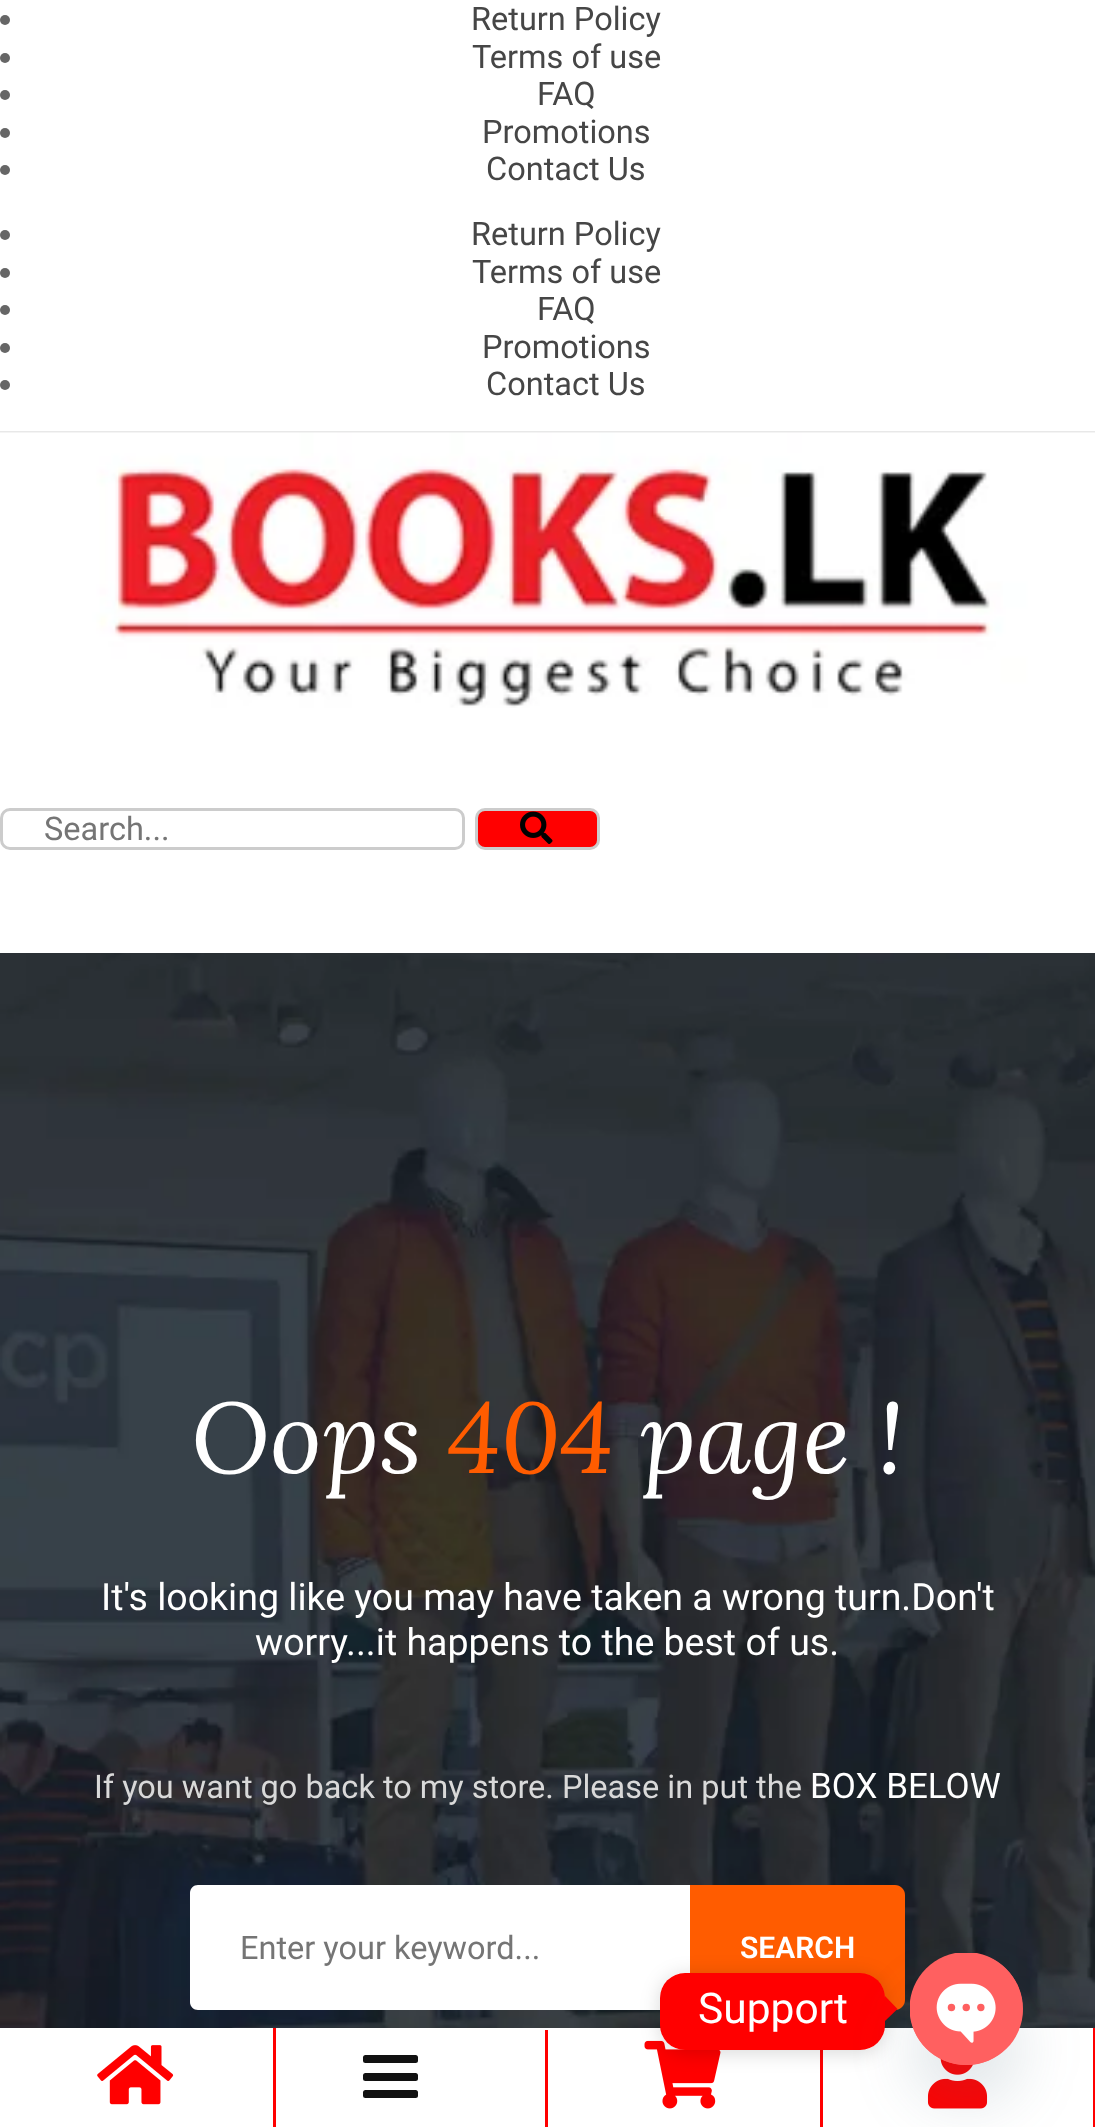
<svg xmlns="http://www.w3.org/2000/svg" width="1095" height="2127">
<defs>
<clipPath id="clip1"><path d="M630 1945h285v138h-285zm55 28h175c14 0 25 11 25 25v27c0 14-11 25-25 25h-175c-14 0-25-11-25-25v-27c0-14 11-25 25-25z" clip-rule="evenodd"/></clipPath>
</defs>
<rect width="100%" height="100%" fill="#fff"/>
<rect y="431" width="1095" height="2" fill="#e8e8e8"/>
<circle cx="5" cy="20" r="5" fill="#666"/>
<text x="471" y="30" style="font-family:Roboto;font-size:32.5px;fill:#464646">Return Policy</text>
<circle cx="5" cy="58" r="5" fill="#666"/>
<text x="472" y="68" style="font-family:Roboto;font-size:32.5px;fill:#464646">Terms of use</text>
<circle cx="5" cy="95" r="5" fill="#666"/>
<text x="537" y="105" style="font-family:Roboto;font-size:32.5px;fill:#464646">FAQ</text>
<circle cx="5" cy="133" r="5" fill="#666"/>
<text x="482" y="143" style="font-family:Roboto;font-size:32.5px;fill:#464646">Promotions</text>
<circle cx="5" cy="170" r="5" fill="#666"/>
<text x="486" y="180" style="font-family:Roboto;font-size:32.5px;fill:#464646">Contact Us</text>
<circle cx="5" cy="235" r="5" fill="#666"/>
<text x="471" y="245" style="font-family:Roboto;font-size:32.5px;fill:#464646">Return Policy</text>
<circle cx="5" cy="273" r="5" fill="#666"/>
<text x="472" y="283" style="font-family:Roboto;font-size:32.5px;fill:#464646">Terms of use</text>
<circle cx="5" cy="310" r="5" fill="#666"/>
<text x="537" y="320" style="font-family:Roboto;font-size:32.5px;fill:#464646">FAQ</text>
<circle cx="5" cy="348" r="5" fill="#666"/>
<text x="482" y="358" style="font-family:Roboto;font-size:32.5px;fill:#464646">Promotions</text>
<circle cx="5" cy="385" r="5" fill="#666"/>
<text x="486" y="395" style="font-family:Roboto;font-size:32.5px;fill:#464646">Contact Us</text>
<image x="0" y="432" width="1095" height="276" href="media/1.png"/>
<rect x="1.5" y="809.5" width="462" height="39" rx="8.5" fill="none" stroke="#ccc" stroke-width="3"/>
<text x="44" y="840" style="font-family:Roboto;font-size:32.5px;fill:#757575">Search...</text>
<rect x="476.5" y="809.5" width="122" height="39" rx="8.5" fill="#f00" stroke="#ccc" stroke-width="3"/>
<image x="520" y="811" width="33" height="33" href="media/2.png"/>
<image x="0" y="953" width="1095" height="1075" href="media/3.png"/>
<text x="191" y="1473" style="font-family:Lora;font-size:100px;font-style:italic;fill:#fff">Oops</text>
<text x="448" y="1473" style="font-family:Lora;font-size:100px;font-style:italic;fill:#ff5c00">404</text>
<text x="639" y="1473" style="font-family:Lora;font-size:100px;font-style:italic;fill:#fff">page !</text>
<text x="101" y="1610" style="font-family:Roboto;font-size:37.5px;fill:#fff">It's looking like you may have taken a wrong turn.Don't</text>
<text x="255" y="1655" style="font-family:Roboto;font-size:37.5px;fill:#fff">worry...it happens to the best of us.</text>
<text x="94" y="1798" style="font-family:Roboto;font-size:32.5px;fill:#d9d9d9">If you want go back to my store. Please in put the</text>
<text x="810" y="1798" style="font-family:Roboto;font-size:35px;fill:#fff">BOX BELOW</text>
<path d="M198 1885h492v125h-492c-4.5 0-8-3.5-8-8v-109c0-4.5 3.5-8 8-8z" fill="#fff"/>
<text x="240" y="1959" style="font-family:Roboto;font-size:32.5px;fill:#757575">Enter your keyword...</text>
<path d="M690 1885h205c5.5 0 10 4.5 10 10v105c0 5.5-4.5 10-10 10h-205z" fill="#ff5c00"/>
<text x="740" y="1958" style="font-family:Roboto;font-size:30px;font-weight:600;fill:#fff">SEARCH</text>
<rect x="820" y="2050" width="3" height="77" fill="#f00"/>
<image x="644" y="2040" width="77" height="69" href="media/6.png"/>
<g clip-path="url(#clip1)">
<rect x="660" y="1975" width="225" height="78" rx="25" fill="#00000026" filter="blur(9.5px)"/>
</g>
<rect x="660" y="1973" width="225" height="77" rx="25" fill="#f00"/>
<text x="698" y="2023" style="font-family:Roboto;font-size:42.5px;fill:#fff">Support</text>
<path d="M885 2021v-25l12.5 13z" fill="#f00"/>
<rect x="1093" y="2028" width="2" height="99" fill="#f00"/>
<image x="927" y="2058" width="61" height="51" href="media/7.png"/>
<rect x="910" y="1993" width="113" height="112" rx="56" fill="#49687e29" filter="blur(30px)"/>
<rect x="910" y="1953" width="113" height="112" rx="56" fill="#ff6060"/>
<image x="910" y="1953" width="113" height="112" href="media/4.png"/>
<rect x="273" y="2028" width="3" height="99" fill="#f00"/>
<image x="97" y="2045" width="77" height="60" href="media/5.png"/>
<rect x="545" y="2030" width="3" height="97" fill="#f00"/>
<rect x="363" y="2055" width="55" height="8" rx="2.5" fill="#111"/>
<rect x="363" y="2073" width="55" height="8" rx="2.5" fill="#111"/>
<rect x="363" y="2090" width="55" height="8" rx="2.5" fill="#111"/>
</svg>
